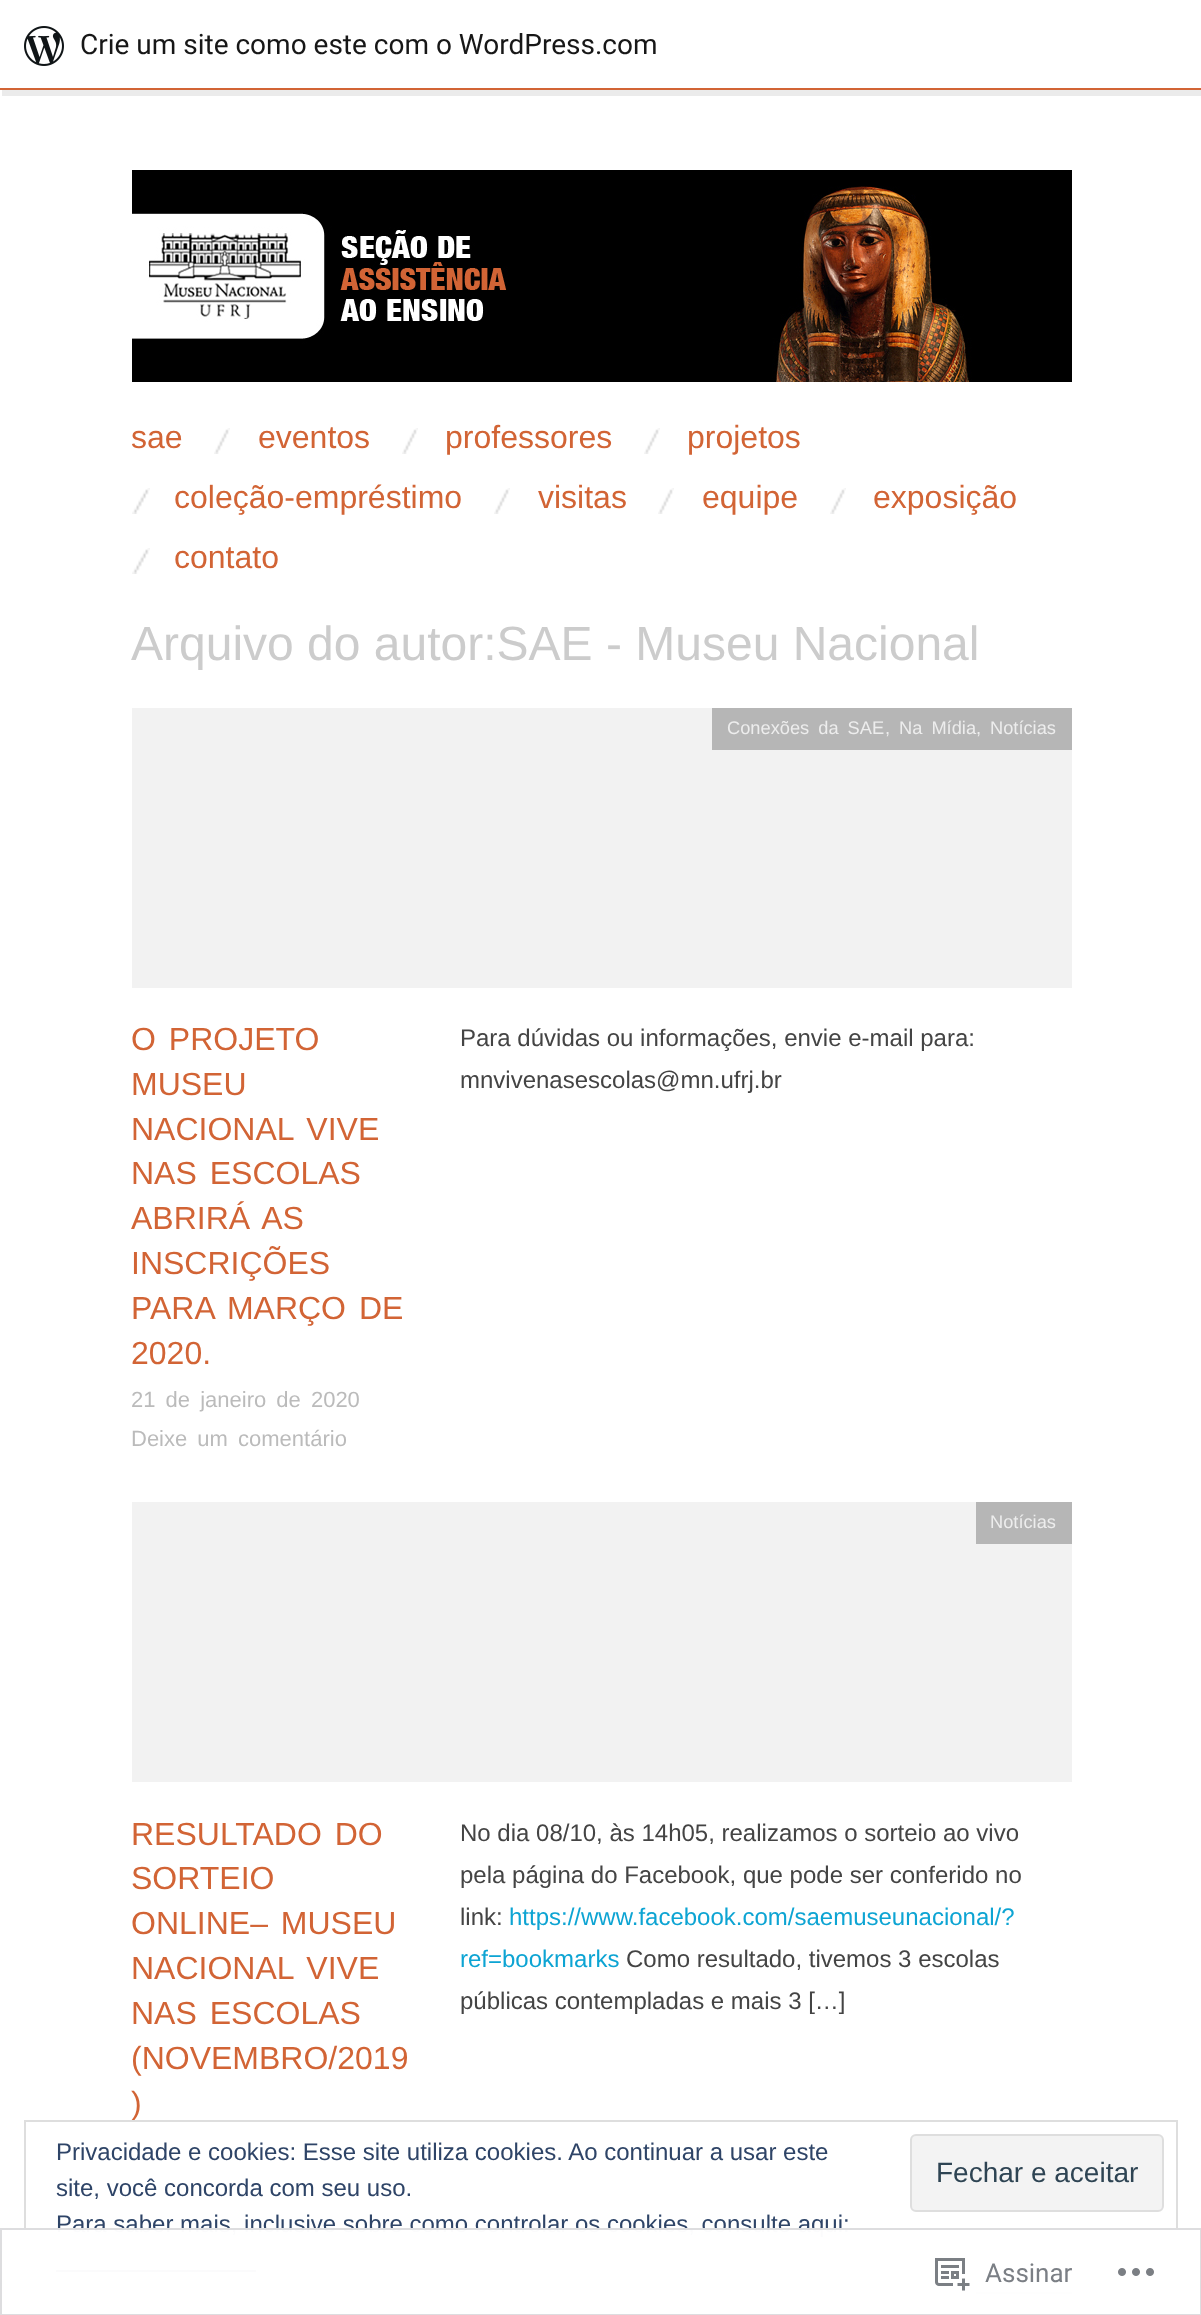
<svg xmlns="http://www.w3.org/2000/svg" width="1201" height="2315">
<rect width="100%" height="100%" fill="#fff"/>
<path d="M2 90v6h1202v-90h-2v84z" fill="#00000014"/>
<image x="24" y="26" width="40" height="40" href="media/1.png"/>
<text x="80" y="54" style="font-family:Roboto;font-size:28px;fill:#171717">Crie um site como este com o WordPress.com</text>
<rect y="88" width="1201" height="2" fill="#d26435"/>
<image x="132" y="170" width="940" height="212" href="media/2.png"/>
<text x="131" y="448" style="font-family:Liberation Sans;font-size:32px;fill:#d26435">sae</text>
<image x="214" y="428" width="16" height="26" href="media/3.png"/>
<text x="258" y="448" style="font-family:Liberation Sans;font-size:32px;fill:#d26435">eventos</text>
<image x="402" y="428" width="16" height="26" href="media/3.png"/>
<text x="445" y="448" style="font-family:Liberation Sans;font-size:32px;fill:#d26435">professores</text>
<image x="644" y="428" width="16" height="26" href="media/3.png"/>
<text x="687" y="448" style="font-family:Liberation Sans;font-size:32px;fill:#d26435">projetos</text>
<image x="132" y="488" width="18" height="26" href="media/4.png"/>
<text x="174" y="508" style="font-family:Liberation Sans;font-size:32px;fill:#d26435">coleção-empréstimo</text>
<image x="494" y="488" width="16" height="26" href="media/3.png"/>
<text x="538" y="508" style="font-family:Liberation Sans;font-size:32px;fill:#d26435">visitas</text>
<image x="658" y="488" width="16" height="26" href="media/3.png"/>
<text x="702" y="508" style="font-family:Liberation Sans;font-size:32px;fill:#d26435">equipe</text>
<image x="830" y="488" width="16" height="26" href="media/3.png"/>
<text x="873" y="508" style="font-family:Liberation Sans;font-size:32px;fill:#d26435">exposição</text>
<image x="132" y="548" width="18" height="26" href="media/4.png"/>
<text x="174" y="568" style="font-family:Liberation Sans;font-size:32px;fill:#d26435">contato</text>
<text x="131" y="660" style="font-family:Liberation Sans;font-size:48px;fill:#ccc">Arquivo do autor:SAE - Museu Nacional</text>
<rect x="132" y="708" width="940" height="280" fill="#f2f2f2"/>
<rect x="712" y="708" width="360" height="42" fill="#b6b6b6"/>
<text x="727" y="734" word-spacing="4" style="font-family:Liberation Sans;font-size:18.25px;fill:#ededed">Conexões da SAE</text>
<text x="885" y="734" style="font-family:Liberation Sans;font-size:18.25px;fill:#ededed">,</text>
<text x="899" y="734" word-spacing="4" style="font-family:Liberation Sans;font-size:18.25px;fill:#ededed">Na Mídia</text>
<text x="976" y="734" style="font-family:Liberation Sans;font-size:18.25px;fill:#ededed">,</text>
<text x="990" y="734" style="font-family:Liberation Sans;font-size:18.25px;fill:#ededed">Notícias</text>
<text x="131" y="1050" word-spacing="4" style="font-family:Liberation Sans;font-size:32px;fill:#d26435">O PROJETO</text>
<text x="131" y="1095" style="font-family:Liberation Sans;font-size:32px;fill:#d26435">MUSEU</text>
<text x="131" y="1140" word-spacing="4" style="font-family:Liberation Sans;font-size:32px;fill:#d26435">NACIONAL VIVE</text>
<text x="131" y="1184" word-spacing="4" style="font-family:Liberation Sans;font-size:32px;fill:#d26435">NAS ESCOLAS</text>
<text x="131" y="1229" word-spacing="4" style="font-family:Liberation Sans;font-size:32px;fill:#d26435">ABRIRÁ AS</text>
<text x="131" y="1274" style="font-family:Liberation Sans;font-size:32px;fill:#d26435">INSCRIÇÕES</text>
<text x="131" y="1319" word-spacing="4" style="font-family:Liberation Sans;font-size:32px;fill:#d26435">PARA MARÇO DE</text>
<text x="131" y="1364" style="font-family:Liberation Sans;font-size:32px;fill:#d26435">2020.</text>
<text x="131" y="1407" word-spacing="4" style="font-family:Liberation Sans;font-size:22px;fill:#bbb">21 de janeiro de 2020</text>
<text x="131" y="1446" word-spacing="4" style="font-family:Liberation Sans;font-size:22px;fill:#bbb">Deixe um comentário</text>
<text x="460" y="1046" style="font-family:Liberation Sans;font-size:24px;fill:#444">Para dúvidas ou informações, envie e-mail para:</text>
<text x="460" y="1088" style="font-family:Liberation Sans;font-size:24px;fill:#444">mnvivenasescolas@mn.ufrj.br</text>
<rect x="132" y="1502" width="940" height="280" fill="#f2f2f2"/>
<rect x="976" y="1502" width="96" height="42" fill="#b6b6b6"/>
<text x="990" y="1528" style="font-family:Liberation Sans;font-size:18.25px;fill:#ededed">Notícias</text>
<text x="131" y="1845" word-spacing="4" style="font-family:Liberation Sans;font-size:32px;fill:#d26435">RESULTADO DO</text>
<text x="131" y="1889" style="font-family:Liberation Sans;font-size:32px;fill:#d26435">SORTEIO</text>
<text x="131" y="1934" word-spacing="4" style="font-family:Liberation Sans;font-size:32px;fill:#d26435">ONLINE– MUSEU</text>
<text x="131" y="1979" word-spacing="4" style="font-family:Liberation Sans;font-size:32px;fill:#d26435">NACIONAL VIVE</text>
<text x="131" y="2024" word-spacing="4" style="font-family:Liberation Sans;font-size:32px;fill:#d26435">NAS ESCOLAS</text>
<text x="131" y="2069" style="font-family:Liberation Sans;font-size:32px;fill:#d26435">(NOVEMBRO/2019</text>
<text x="131" y="2114" style="font-family:Liberation Sans;font-size:32px;fill:#d26435">)</text>
<text x="460" y="1841" style="font-family:Liberation Sans;font-size:24px;fill:#444">No dia 08/10, às 14h05, realizamos o sorteio ao vivo</text>
<text x="460" y="1883" style="font-family:Liberation Sans;font-size:24px;fill:#444">pela página do Facebook, que pode ser conferido no</text>
<text x="460" y="1925" style="font-family:Liberation Sans;font-size:24px;fill:#444">link:</text>
<text x="509" y="1925" style="font-family:Liberation Sans;font-size:24px;fill:#0da4d3">https://www.facebook.com/saemuseunacional/?</text>
<text x="460" y="1967" style="font-family:Liberation Sans;font-size:24px;fill:#0da4d3">ref=bookmarks</text>
<text x="626" y="1967" style="font-family:Liberation Sans;font-size:24px;fill:#444">Como resultado, tivemos 3 escolas</text>
<text x="460" y="2009" style="font-family:Liberation Sans;font-size:24px;fill:#444">públicas contempladas e mais 3 […]</text>
<rect x="132" y="2292" width="940" height="23" fill="#f2f2f2"/>
<rect x="976" y="2292" width="96" height="2" fill="#b6b6b6"/>
<rect x="25" y="2121" width="1152" height="170" fill="none" stroke="#dedede" stroke-width="2"/>
<text x="56" y="2160" style="font-family:Liberation Sans;font-size:24px;fill:#2e4467">Privacidade e cookies: Esse site utiliza cookies. Ao continuar a usar este</text>
<rect x="911" y="2135" width="252" height="76" rx="5" fill="#f3f3f3" stroke="#dedede" stroke-width="2"/>
<text x="936" y="2182" style="font-family:Liberation Sans;font-size:28px;fill:#2e4453">Fechar e aceitar</text>
<text x="56" y="2196" style="font-family:Liberation Sans;font-size:24px;fill:#2e4467">site, você concorda com seu uso.</text>
<text x="56" y="2232" style="font-family:Liberation Sans;font-size:24px;fill:#2e4467">Para saber mais, inclusive sobre como controlar os cookies, consulte aqui:</text>
<rect x="56" y="2270" width="200" height="2" fill="#2e4467"/>
<rect x="24" y="2228" width="1154" height="87" fill="#fffffffa"/>
<rect x="1" y="2229" width="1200" height="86" fill="none" stroke="#dcdcdefa" stroke-width="2"/>
<image x="935" y="2258" width="35" height="33" href="media/5.png"/>
<text x="985" y="2282" style="font-family:Roboto;font-size:26px;fill:#7b7f85">Assinar</text>
<image x="1118" y="2268" width="36" height="8" href="media/6.png"/>
</svg>
